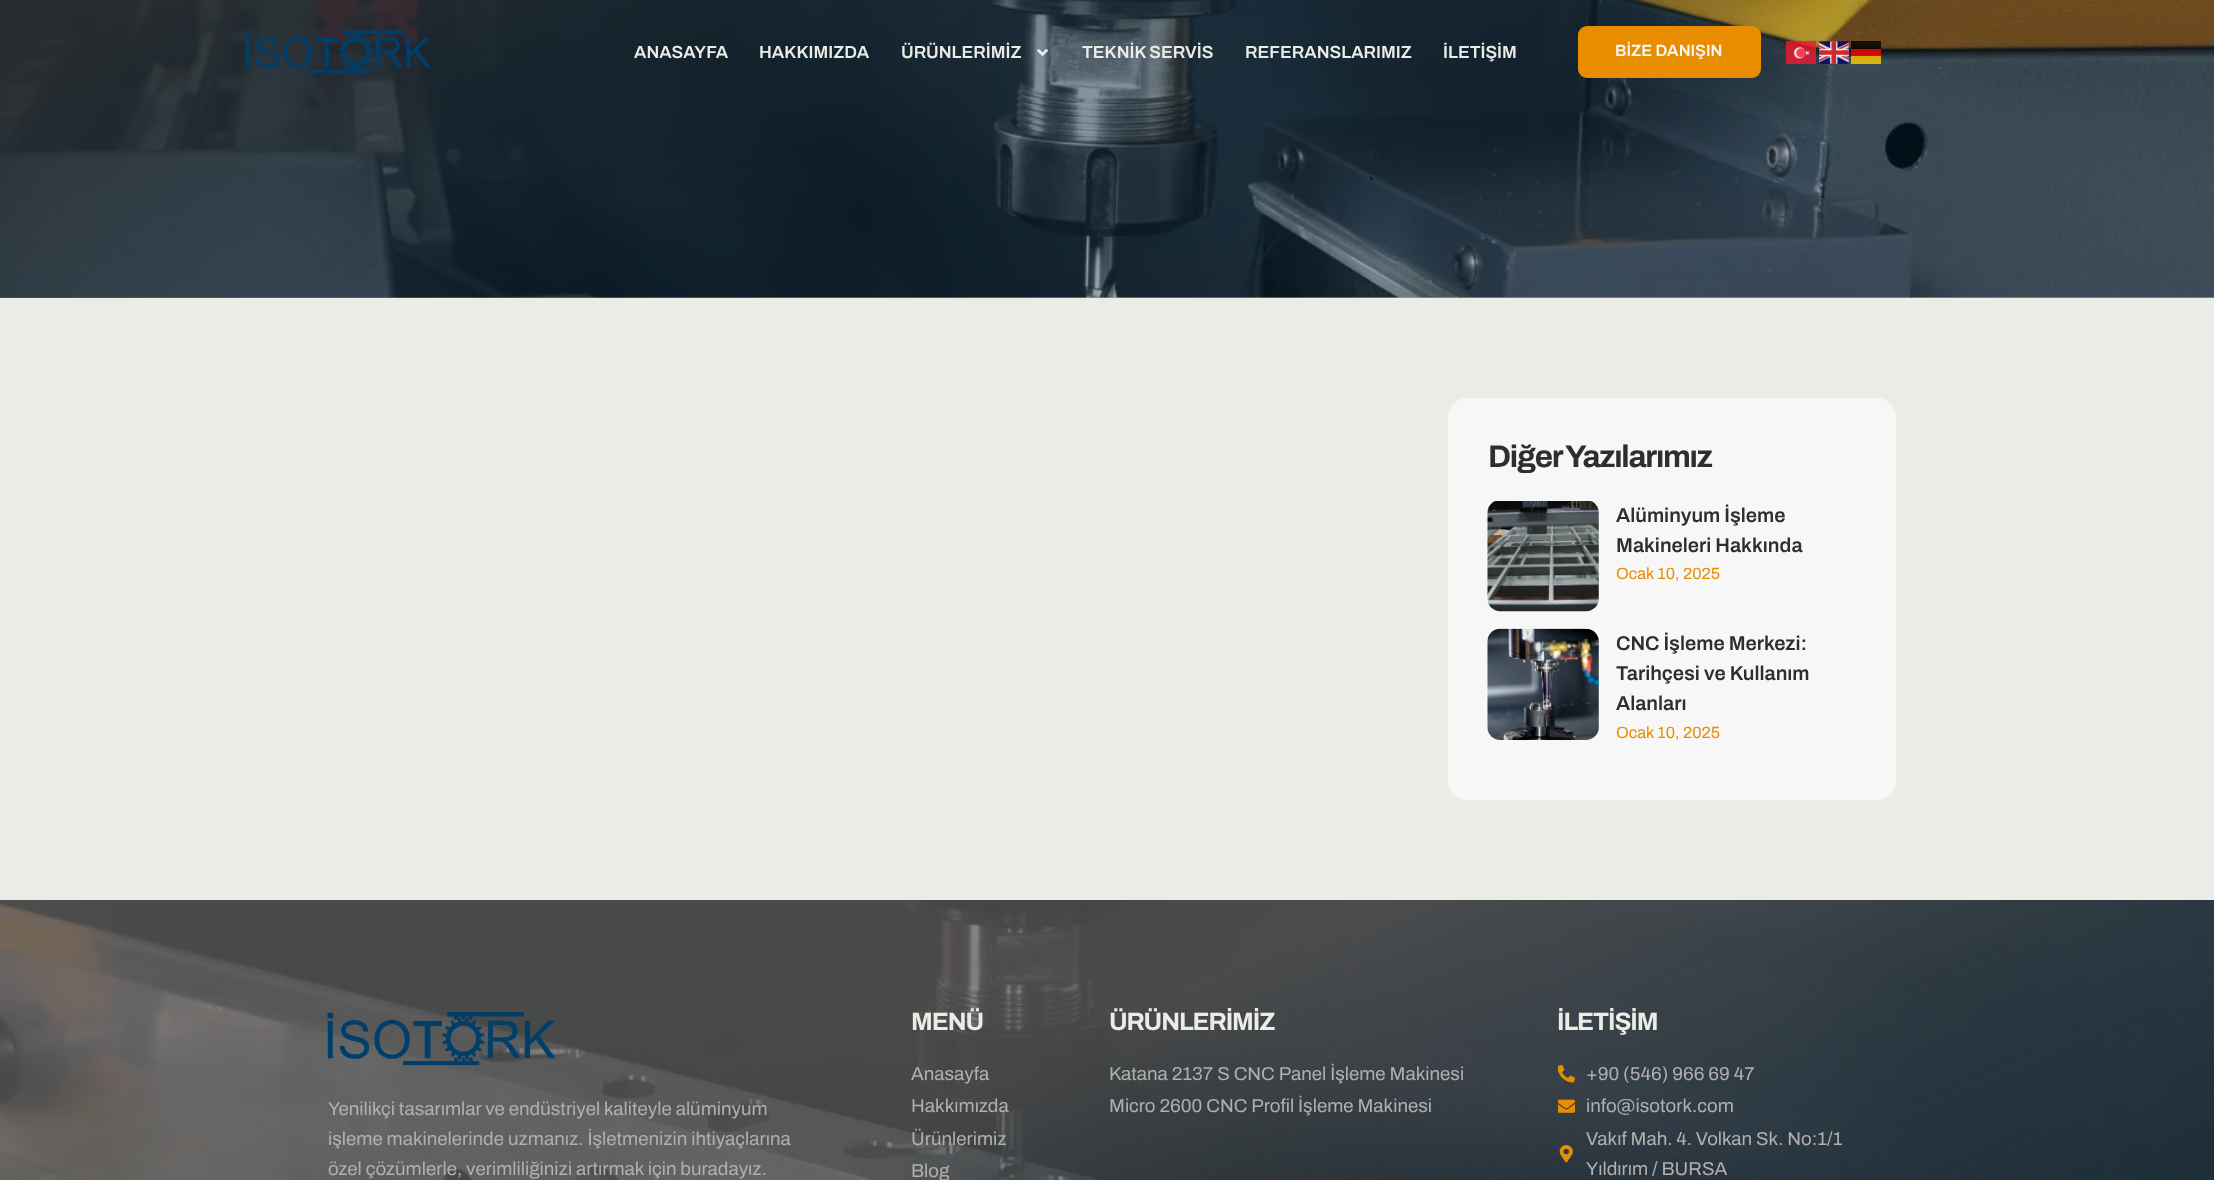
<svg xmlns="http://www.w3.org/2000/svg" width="2214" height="1180">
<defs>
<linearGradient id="g1" gradientUnits="userSpaceOnUse" x1="858" y1="-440" x2="1357" y2="680"><stop offset="0" stop-color="#2e2e2e"/><stop offset="0.7" stop-color="#002e4e" stop-opacity="0.28"/></linearGradient>
</defs>
<rect width="100%" height="100%" fill="#ebece6"/>
<image x="0" y="0" width="2214" height="298" href="media/5.png"/>
<rect width="2214" height="298" fill="url(#g1)"/>
<image x="245" y="29" width="186" height="45" href="media/1.png"/>
<text x="634" y="58" style="font-family:Archivo;font-size:17.5px;font-weight:600;fill:#ebece6">ANASAYFA</text>
<text x="759" y="58" style="font-family:Archivo;font-size:17.5px;font-weight:600;fill:#ebece6">HAKKIMIZDA</text>
<text x="901" y="58" style="font-family:Archivo;font-size:17.5px;font-weight:600;fill:#ebece6">ÜRÜNLERİMİZ</text>
<image x="1037" y="49" width="11" height="7" href="media/2.png"/>
<text x="1082" y="58" style="font-family:Archivo;font-size:17.5px;font-weight:600;fill:#ebece6">TEKNİK SERVİS</text>
<text x="1245" y="58" style="font-family:Archivo;font-size:17.5px;font-weight:600;fill:#ebece6">REFERANSLARIMIZ</text>
<text x="1443" y="58" style="font-family:Archivo;font-size:17.5px;font-weight:600;fill:#ebece6">İLETİŞİM</text>
<rect x="1578" y="26" width="183" height="52" rx="9" fill="#e88d00"/>
<text x="1615" y="56" style="font-family:Archivo;font-size:16.25px;font-weight:600;fill:#f7f7f7">BİZE DANIŞIN</text>
<image x="1786" y="41" width="30" height="23" href="media/3.png"/>
<image x="1819" y="41" width="30" height="23" href="media/4.png"/>
<rect x="1851" y="41" width="30" height="8" fill="#000000cc"/>
<rect x="1851" y="49" width="30" height="7" fill="#ff0000cc"/>
<rect x="1851" y="56" width="30" height="8" fill="#ffcc00cc"/>
<rect x="1448" y="398" width="448" height="402" rx="19" fill="#f7f7f7"/>
<text x="1488" y="467" style="font-family:Archivo;font-size:31.25px;font-weight:bold;letter-spacing:-1.25px;fill:#2e2e2e">Diğer Yazılarımız</text>
<image x="1487" y="501" width="112" height="111" href="media/6.png"/>
<text x="1616" y="522" style="font-family:Archivo;font-size:20px;font-weight:600;fill:#2e2e2e">Alüminyum İşleme</text>
<text x="1616" y="552" style="font-family:Archivo;font-size:20px;font-weight:600;fill:#2e2e2e">Makineleri Hakkında</text>
<text x="1616" y="579" style="font-family:Archivo;font-size:16.25px;fill:#e88d00">Ocak 10, 2025</text>
<image x="1487" y="628" width="112" height="112" href="media/7.png"/>
<text x="1616" y="650" style="font-family:Archivo;font-size:20px;font-weight:600;fill:#2e2e2e">CNC İşleme Merkezi:</text>
<text x="1616" y="680" style="font-family:Archivo;font-size:20px;font-weight:600;fill:#2e2e2e">Tarihçesi ve Kullanım</text>
<text x="1616" y="710" style="font-family:Archivo;font-size:20px;font-weight:600;fill:#2e2e2e">Alanları</text>
<text x="1616" y="738" style="font-family:Archivo;font-size:16.25px;fill:#e88d00">Ocak 10, 2025</text>
<image x="0" y="900" width="2214" height="280" href="media/8.png"/>
<image x="327" y="1012" width="229" height="54" href="media/9.png"/>
<text x="328" y="1115" style="font-family:Archivo;font-size:18.75px;fill:#b1afaf">Yenilikçi tasarımlar ve endüstriyel kaliteyle alüminyum</text>
<text x="328" y="1145" style="font-family:Archivo;font-size:18.75px;fill:#b1afaf">işleme makinelerinde uzmanız. İşletmenizin ihtiyaçlarına</text>
<text x="328" y="1175" style="font-family:Archivo;font-size:18.75px;fill:#b1afaf">özel çözümlerle, verimliliğinizi artırmak için buradayız.</text>
<text x="911" y="1030" style="font-family:Archivo;font-size:25px;font-weight:bold;letter-spacing:-1.1px;fill:#ebece6">MENÜ</text>
<text x="911" y="1080" style="font-family:Archivo;font-size:18.75px;fill:#b1afaf">Anasayfa</text>
<text x="911" y="1112" style="font-family:Archivo;font-size:18.75px;fill:#b1afaf">Hakkımızda</text>
<text x="911" y="1145" style="font-family:Archivo;font-size:18.75px;fill:#b1afaf">Ürünlerimiz</text>
<text x="911" y="1177" style="font-family:Archivo;font-size:18.75px;fill:#b1afaf">Blog</text>
<text x="1109" y="1030" style="font-family:Archivo;font-size:25px;font-weight:bold;letter-spacing:-1.1px;fill:#ebece6">ÜRÜNLERİMİZ</text>
<text x="1109" y="1080" style="font-family:Archivo;font-size:18.75px;fill:#b1afaf">Katana 2137 S CNC Panel İşleme Makinesi</text>
<text x="1109" y="1112" style="font-family:Archivo;font-size:18.75px;fill:#b1afaf">Micro 2600 CNC Profil İşleme Makinesi</text>
<text x="1557" y="1030" style="font-family:Archivo;font-size:25px;font-weight:bold;letter-spacing:-1.1px;fill:#ebece6">İLETİŞİM</text>
<image x="1558" y="1065" width="17" height="18" href="media/10.png"/>
<text x="1586" y="1080" style="font-family:Archivo;font-size:18.75px;fill:#b1afaf">+90 (546) 966 69 47</text>
<image x="1558" y="1099" width="17" height="14" href="media/11.png"/>
<text x="1586" y="1112" style="font-family:Archivo;font-size:18.75px;fill:#b1afaf">info@isotork.com</text>
<image x="1559" y="1145" width="14" height="18" href="media/12.png"/>
<text x="1586" y="1145" style="font-family:Archivo;font-size:18.75px;fill:#b1afaf">Vakıf Mah. 4. Volkan Sk. No:1/1</text>
<text x="1586" y="1175" style="font-family:Archivo;font-size:18.75px;fill:#b1afaf">Yıldırım / BURSA</text>
</svg>
